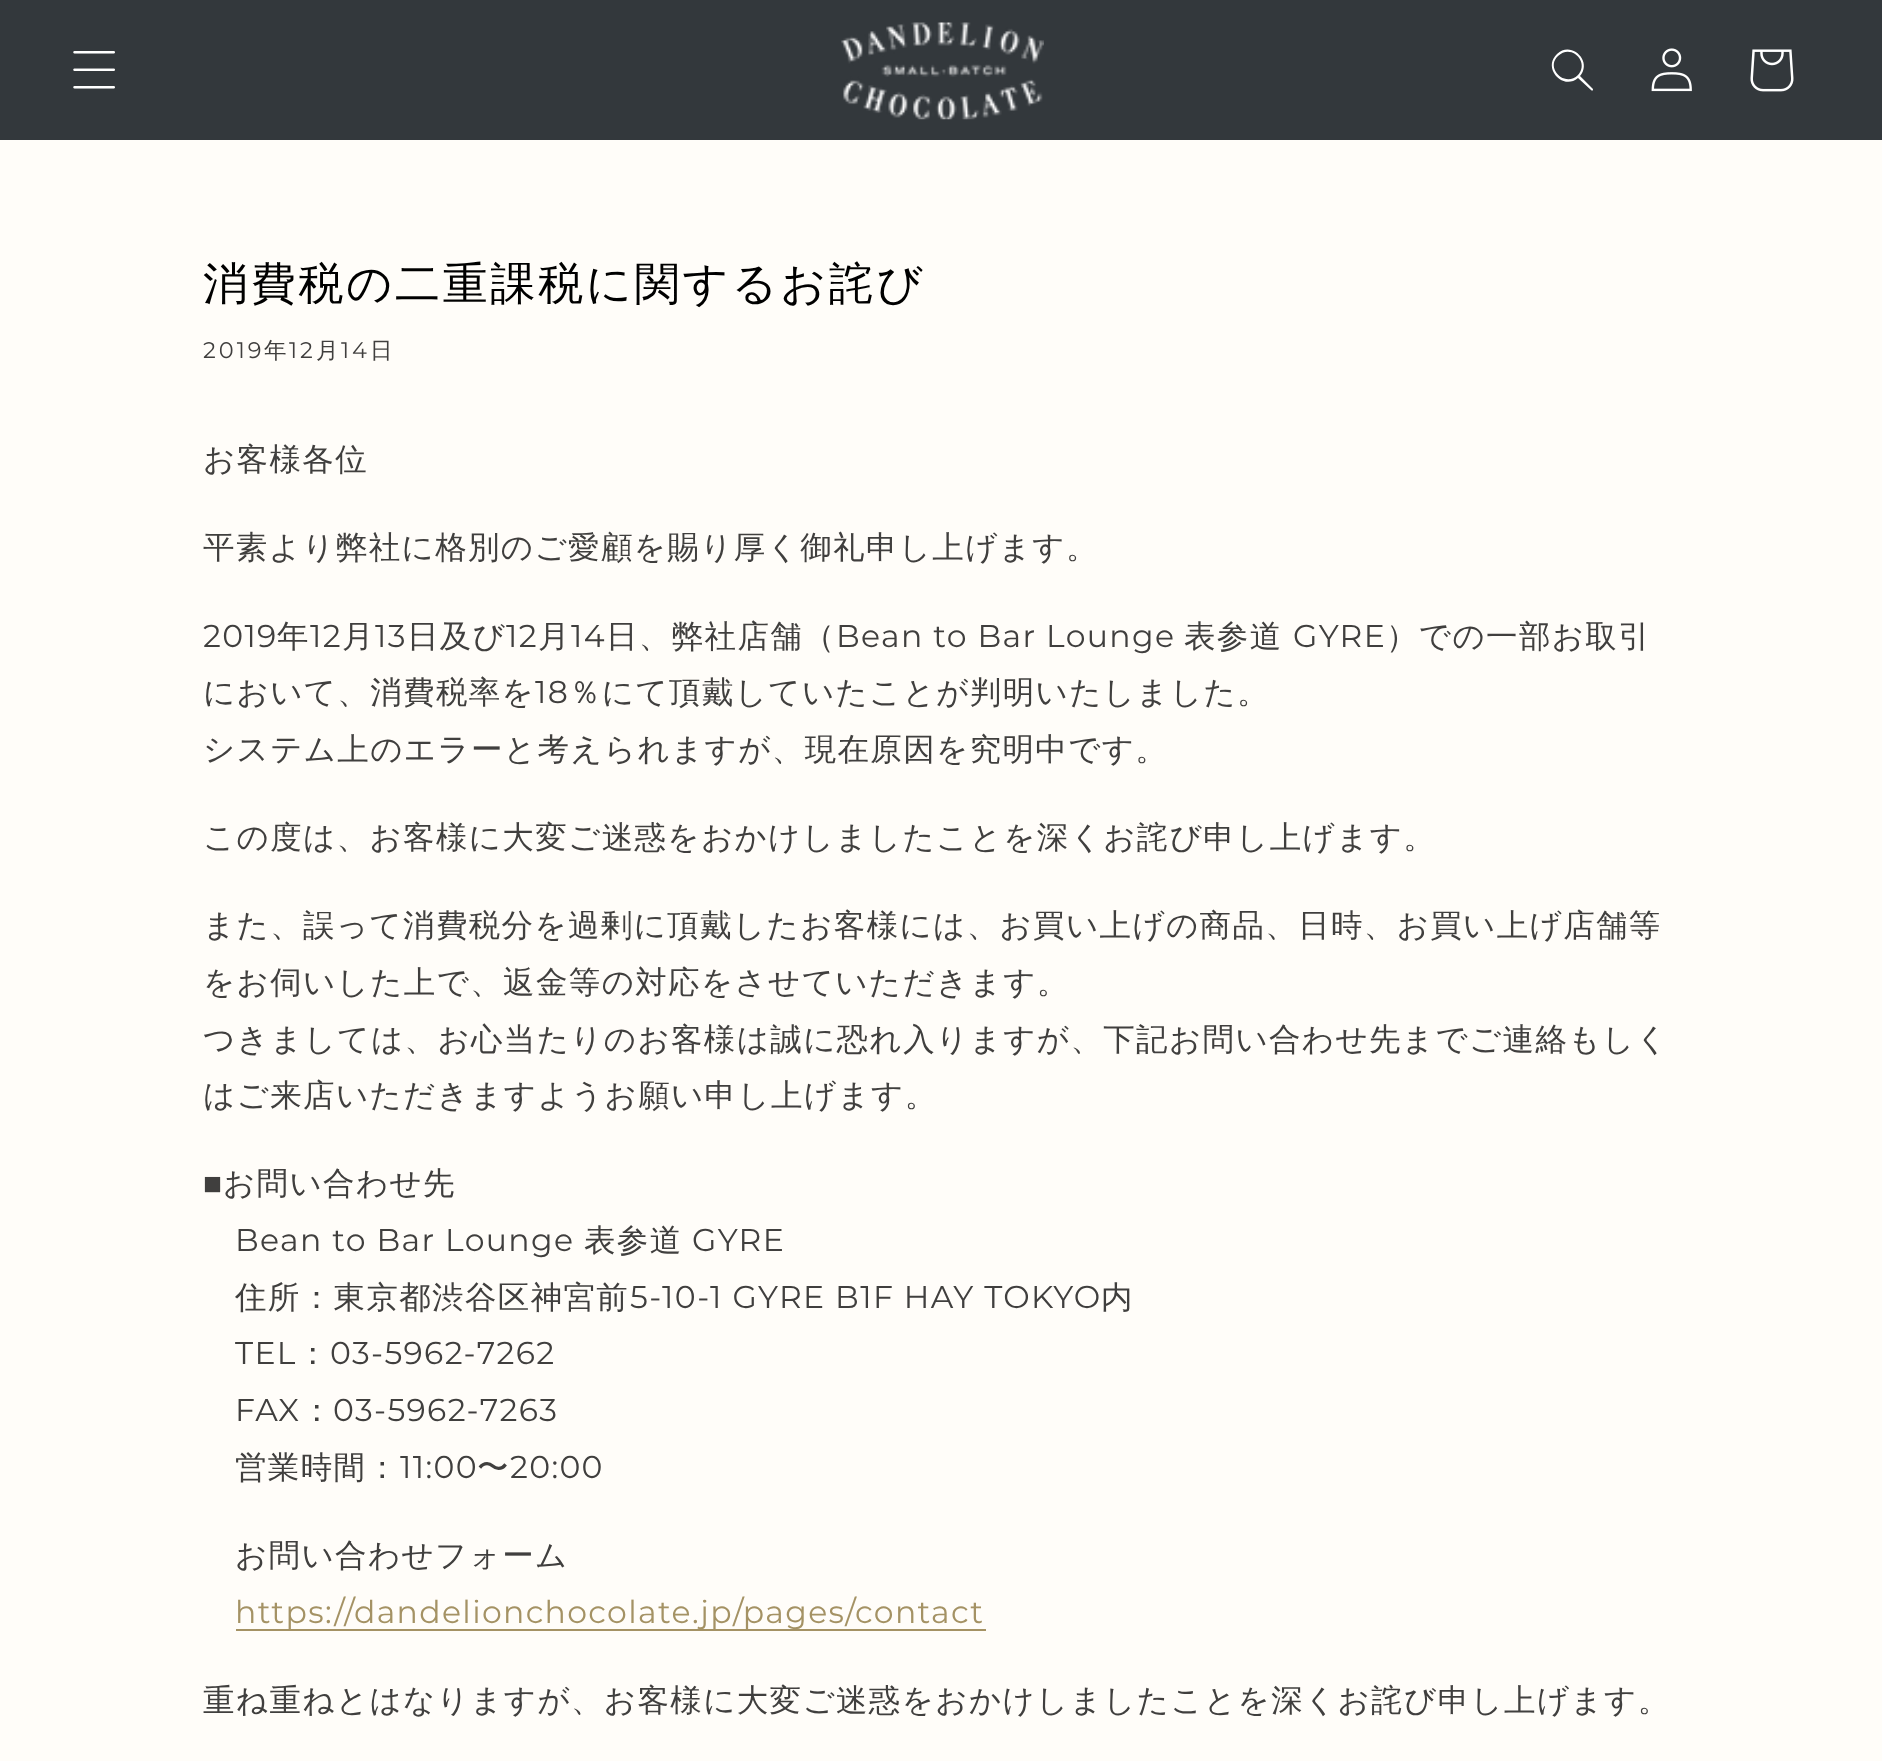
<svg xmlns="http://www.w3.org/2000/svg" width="1882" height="1761">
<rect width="100%" height="100%" fill="#fffdf9"/>
<rect width="1882" height="140" fill="#33383c"/>
<image x="73" y="51" width="42" height="38" href="media/1.png"/>
<image x="841" y="22" width="203" height="98" href="media/2.png"/>
<path d="M1578 75c-13 13-33-7-20-19c13-13 32 6 20 19m0 3c-15 13-36-10-21-24c14-14 36 7 23 22l13 13c0 2-1 2-2 1z" fill="#fff" fill-rule="evenodd"/>
<image x="1651" y="48" width="41" height="44" href="media/3.png"/>
<image x="1750" y="49" width="44" height="43" href="media/4.png"/>
<text x="203" y="299" style="font-family:WenQuanYi Zen Hei;font-size:45px;font-weight:500;letter-spacing:2.75px;fill:#000">消費税の二重課税に関するお詫び</text>
<text x="203" y="358" style="font-family:Montserrat;font-size:22.5px;letter-spacing:3px;fill:#403f3e">2019</text>
<text x="264" y="358" style="font-family:WenQuanYi Zen Hei;font-size:22.5px;font-weight:500;letter-spacing:3px;fill:#403f3e">年</text>
<text x="289" y="358" style="font-family:Montserrat;font-size:22.5px;letter-spacing:3px;fill:#403f3e">12</text>
<text x="316" y="358" style="font-family:WenQuanYi Zen Hei;font-size:22.5px;font-weight:500;letter-spacing:3px;fill:#403f3e">月</text>
<text x="341" y="358" style="font-family:Montserrat;font-size:22.5px;letter-spacing:3px;fill:#403f3e">14</text>
<text x="370" y="358" style="font-family:WenQuanYi Zen Hei;font-size:22.5px;font-weight:500;letter-spacing:3px;fill:#403f3e">日</text>
<text x="203" y="470" style="font-family:WenQuanYi Zen Hei;font-size:31.5px;font-weight:500;letter-spacing:1.35px;fill:#403f3e">お客様各位</text>
<text x="203" y="558" style="font-family:WenQuanYi Zen Hei;font-size:31.5px;font-weight:500;letter-spacing:1.35px;fill:#403f3e">平素より弊社に格別のご愛顧を賜り厚く御礼申し上げます。</text>
<text x="203" y="647" style="font-family:Montserrat;font-size:31.5px;letter-spacing:1.35px;fill:#403f3e">2019</text>
<text x="277" y="647" style="font-family:WenQuanYi Zen Hei;font-size:31.5px;font-weight:500;letter-spacing:1.35px;fill:#403f3e">年</text>
<text x="310" y="647" style="font-family:Montserrat;font-size:31.5px;letter-spacing:1.35px;fill:#403f3e">12</text>
<text x="342" y="647" style="font-family:WenQuanYi Zen Hei;font-size:31.5px;font-weight:500;letter-spacing:1.35px;fill:#403f3e">月</text>
<text x="375" y="647" style="font-family:Montserrat;font-size:31.5px;letter-spacing:1.35px;fill:#403f3e">13</text>
<text x="407" y="647" style="font-family:WenQuanYi Zen Hei;font-size:31.5px;font-weight:500;letter-spacing:1.35px;fill:#403f3e">日及び</text>
<text x="506" y="647" style="font-family:Montserrat;font-size:31.5px;letter-spacing:1.35px;fill:#403f3e">12</text>
<text x="538" y="647" style="font-family:WenQuanYi Zen Hei;font-size:31.5px;font-weight:500;letter-spacing:1.35px;fill:#403f3e">月</text>
<text x="571" y="647" style="font-family:Montserrat;font-size:31.5px;letter-spacing:1.35px;fill:#403f3e">14</text>
<text x="606" y="647" style="font-family:WenQuanYi Zen Hei;font-size:31.5px;font-weight:500;letter-spacing:1.35px;fill:#403f3e">日、弊社店舗（</text>
<text x="836" y="647" style="font-family:Montserrat;font-size:31.5px;letter-spacing:1.35px;fill:#403f3e">Bean to Bar Lounge</text>
<text x="1184" y="647" style="font-family:WenQuanYi Zen Hei;font-size:31.5px;font-weight:500;letter-spacing:1.35px;fill:#403f3e">表参道</text>
<text x="1293" y="647" style="font-family:Montserrat;font-size:31.5px;letter-spacing:1.35px;fill:#403f3e">GYRE</text>
<text x="1386" y="647" style="font-family:WenQuanYi Zen Hei;font-size:31.5px;font-weight:500;letter-spacing:1.35px;fill:#403f3e">）での一部お取引</text>
<text x="203" y="703" style="font-family:WenQuanYi Zen Hei;font-size:31.5px;font-weight:500;letter-spacing:1.35px;fill:#403f3e">において、消費税率を</text>
<text x="535" y="703" style="font-family:Montserrat;font-size:31.5px;letter-spacing:1.35px;fill:#403f3e">18</text>
<text x="569" y="703" style="font-family:WenQuanYi Zen Hei;font-size:31.5px;font-weight:500;letter-spacing:1.35px;fill:#403f3e">％にて頂戴していたことが判明いたしました。</text>
<text x="203" y="760" style="font-family:WenQuanYi Zen Hei;font-size:31.5px;font-weight:500;letter-spacing:1.35px;fill:#403f3e">システム上のエラーと考えられますが、現在原因を究明中です。</text>
<text x="203" y="848" style="font-family:WenQuanYi Zen Hei;font-size:31.5px;font-weight:500;letter-spacing:1.35px;fill:#403f3e">この度は、お客様に大変ご迷惑をおかけしましたことを深くお詫び申し上げます。</text>
<text x="203" y="936" style="font-family:WenQuanYi Zen Hei;font-size:31.5px;font-weight:500;letter-spacing:1.35px;fill:#403f3e">また、誤って消費税分を過剰に頂戴したお客様には、お買い上げの商品、日時、お買い上げ店舗等</text>
<text x="203" y="993" style="font-family:WenQuanYi Zen Hei;font-size:31.5px;font-weight:500;letter-spacing:1.35px;fill:#403f3e">をお伺いした上で、返金等の対応をさせていただきます。</text>
<text x="203" y="1050" style="font-family:WenQuanYi Zen Hei;font-size:31.5px;font-weight:500;letter-spacing:1.35px;fill:#403f3e">つきましては、お心当たりのお客様は誠に恐れ入りますが、下記お問い合わせ先までご連絡もしく</text>
<text x="203" y="1106" style="font-family:WenQuanYi Zen Hei;font-size:31.5px;font-weight:500;letter-spacing:1.35px;fill:#403f3e">はご来店いただきますようお願い申し上げます。</text>
<text x="203" y="1194" style="font-family:Liberation Sans;font-size:31.5px;letter-spacing:1.35px;fill:#403f3e">■</text>
<text x="223" y="1194" style="font-family:WenQuanYi Zen Hei;font-size:31.5px;font-weight:500;letter-spacing:1.35px;fill:#403f3e">お問い合わせ先</text>
<text x="235" y="1251" style="font-family:Montserrat;font-size:31.5px;letter-spacing:1.35px;fill:#403f3e">Bean to Bar Lounge</text>
<text x="584" y="1251" style="font-family:WenQuanYi Zen Hei;font-size:31.5px;font-weight:500;letter-spacing:1.35px;fill:#403f3e">表参道</text>
<text x="692" y="1251" style="font-family:Montserrat;font-size:31.5px;letter-spacing:1.35px;fill:#403f3e">GYRE</text>
<text x="235" y="1308" style="font-family:WenQuanYi Zen Hei;font-size:31.5px;font-weight:500;letter-spacing:1.35px;fill:#403f3e">住所：東京都渋谷区神宮前</text>
<text x="630" y="1308" style="font-family:Montserrat;font-size:31.5px;letter-spacing:1.35px;fill:#403f3e">5-10-1 GYRE B1F HAY TOKYO</text>
<text x="1101" y="1308" style="font-family:WenQuanYi Zen Hei;font-size:31.5px;font-weight:500;letter-spacing:1.35px;fill:#403f3e">内</text>
<text x="235" y="1364" style="font-family:Montserrat;font-size:31.5px;letter-spacing:1.35px;fill:#403f3e">TEL</text>
<text x="297" y="1364" style="font-family:WenQuanYi Zen Hei;font-size:31.5px;font-weight:500;letter-spacing:1.35px;fill:#403f3e">：</text>
<text x="330" y="1364" style="font-family:Montserrat;font-size:31.5px;letter-spacing:1.35px;fill:#403f3e">03-5962-7262</text>
<text x="235" y="1421" style="font-family:Montserrat;font-size:31.5px;letter-spacing:1.35px;fill:#403f3e">FAX</text>
<text x="301" y="1421" style="font-family:WenQuanYi Zen Hei;font-size:31.5px;font-weight:500;letter-spacing:1.35px;fill:#403f3e">：</text>
<text x="333" y="1421" style="font-family:Montserrat;font-size:31.5px;letter-spacing:1.35px;fill:#403f3e">03-5962-7263</text>
<text x="235" y="1478" style="font-family:WenQuanYi Zen Hei;font-size:31.5px;font-weight:500;letter-spacing:1.35px;fill:#403f3e">営業時間：</text>
<text x="400" y="1478" style="font-family:Montserrat;font-size:31.5px;letter-spacing:1.35px;fill:#403f3e">11:00</text>
<text x="477" y="1478" style="font-family:WenQuanYi Zen Hei;font-size:31.5px;font-weight:500;letter-spacing:1.35px;fill:#403f3e">〜</text>
<text x="510" y="1478" style="font-family:Montserrat;font-size:31.5px;letter-spacing:1.35px;fill:#403f3e">20:00</text>
<text x="235" y="1566" style="font-family:WenQuanYi Zen Hei;font-size:31.5px;font-weight:500;letter-spacing:1.35px;fill:#403f3e">お問い合わせフォーム</text>
<rect x="236" y="1629" width="750" height="2" fill="#a49264"/>
<text x="235" y="1623" style="font-family:Montserrat;font-size:31.5px;letter-spacing:1.35px;fill:#a49264">https://dandelionchocolate.jp/pages/contact</text>
<text x="203" y="1711" style="font-family:WenQuanYi Zen Hei;font-size:31.5px;font-weight:500;letter-spacing:1.35px;fill:#403f3e">重ね重ねとはなりますが、お客様に大変ご迷惑をおかけしましたことを深くお詫び申し上げます。</text>
</svg>
